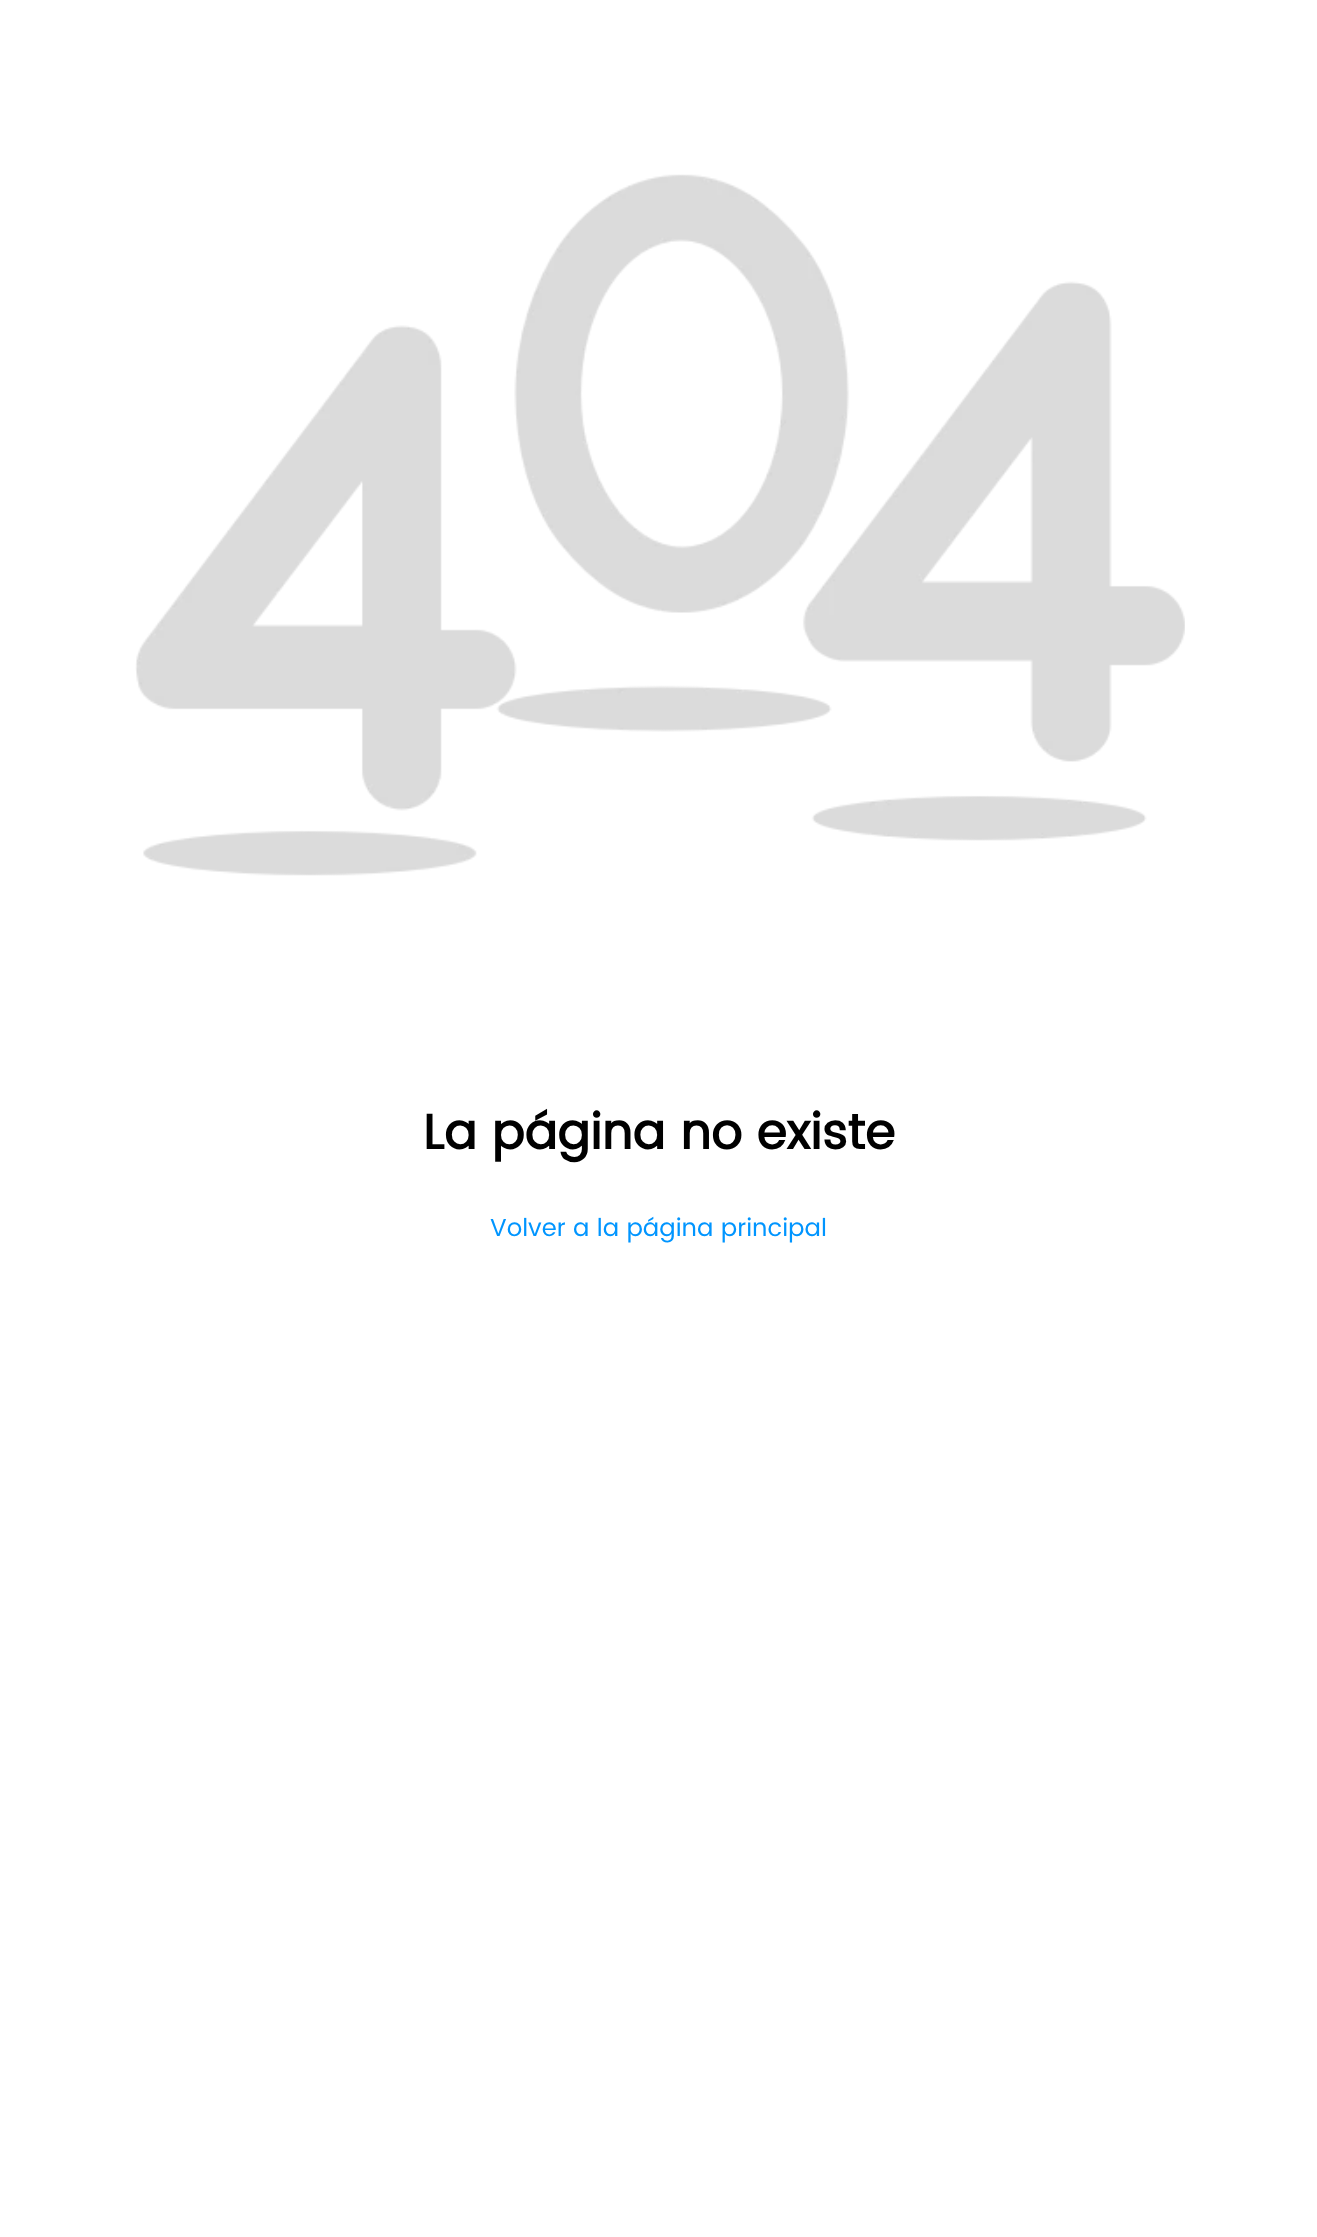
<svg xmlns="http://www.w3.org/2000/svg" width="1317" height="2237">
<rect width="100%" height="100%" fill="#fff"/>
<image x="135" y="174" width="1050" height="702" href="media/1.png"/>
<text x="423" y="1149" style="font-family:Poppins;font-size:49px;font-weight:bold;fill:#000">La página no existe</text>
<text x="490" y="1236" style="font-family:Poppins;font-size:24.5px;fill:#0095ff">Volver a la página principal</text>
</svg>
